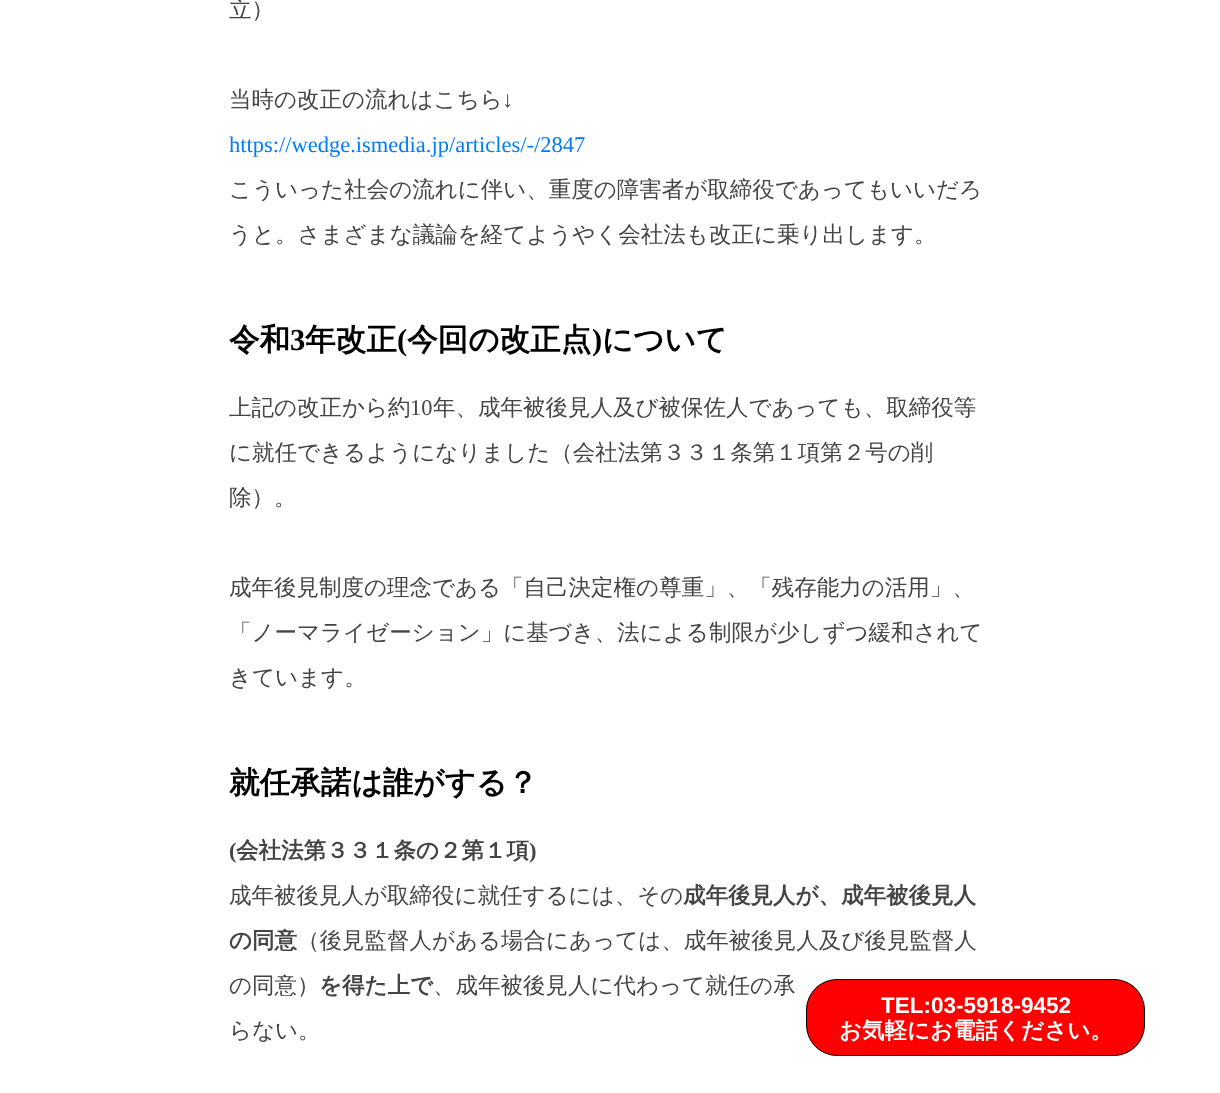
<svg xmlns="http://www.w3.org/2000/svg" width="1220" height="1093">
<rect width="100%" height="100%" fill="#fff"/>
<text x="229" y="17" style="font-family:WenQuanYi Zen Hei;font-size:22.5px;font-weight:500;fill:#444">立）</text>
<text x="229" y="107" style="font-family:WenQuanYi Zen Hei;font-size:22.5px;font-weight:500;fill:#444">当時の改正の流れはこちら</text>
<text x="502" y="107" style="font-family:Liberation Serif;font-size:22.5px;fill:#444">↓</text>
<text x="229" y="152" style="font-family:Liberation Serif;font-size:22.5px;fill:#007bff">https://wedge.ismedia.jp/articles/-/2847</text>
<text x="229" y="197" style="font-family:WenQuanYi Zen Hei;font-size:22.5px;font-weight:500;fill:#444">こういった社会の流れに伴い、重度の障害者が取締役であってもいいだろ</text>
<text x="229" y="242" style="font-family:WenQuanYi Zen Hei;font-size:22.5px;font-weight:500;fill:#444">うと。さまざまな議論を経てようやく会社法も改正に乗り出します。</text>
<text x="229" y="350" style="font-family:WenQuanYi Zen Hei;font-size:30.6px;font-weight:bold;fill:#000">令和</text>
<text x="290" y="350" style="font-family:Liberation Serif;font-size:30.6px;font-weight:bold;fill:#000">3</text>
<text x="305" y="350" style="font-family:WenQuanYi Zen Hei;font-size:30.6px;font-weight:bold;fill:#000">年改正</text>
<text x="397" y="350" style="font-family:Liberation Serif;font-size:30.6px;font-weight:bold;fill:#000">(</text>
<text x="407" y="350" style="font-family:WenQuanYi Zen Hei;font-size:30.6px;font-weight:bold;fill:#000">今回の改正点</text>
<text x="592" y="350" style="font-family:Liberation Serif;font-size:30.6px;font-weight:bold;fill:#000">)</text>
<text x="602" y="350" style="font-family:WenQuanYi Zen Hei;font-size:30.6px;font-weight:bold;fill:#000">について</text>
<text x="229" y="415" style="font-family:WenQuanYi Zen Hei;font-size:22.5px;font-weight:500;fill:#444">上記の改正から約</text>
<text x="410" y="415" style="font-family:Liberation Serif;font-size:22.5px;fill:#444">10</text>
<text x="433" y="415" style="font-family:WenQuanYi Zen Hei;font-size:22.5px;font-weight:500;fill:#444">年、成年被後見人及び被保佐人であっても、取締役等</text>
<text x="229" y="460" style="font-family:WenQuanYi Zen Hei;font-size:22.5px;font-weight:500;fill:#444">に就任できるようになりました（会社法第３３１条第１項第２号の削</text>
<text x="229" y="505" style="font-family:WenQuanYi Zen Hei;font-size:22.5px;font-weight:500;fill:#444">除）。</text>
<text x="229" y="595" style="font-family:WenQuanYi Zen Hei;font-size:22.5px;font-weight:500;fill:#444">成年後見制度の理念である「自己決定権の尊重」、「残存能力の活用」、</text>
<text x="229" y="640" style="font-family:WenQuanYi Zen Hei;font-size:22.5px;font-weight:500;fill:#444">「ノーマライゼーション」に基づき、法による制限が少しずつ緩和されて</text>
<text x="229" y="685" style="font-family:WenQuanYi Zen Hei;font-size:22.5px;font-weight:500;fill:#444">きています。</text>
<text x="229" y="793" style="font-family:WenQuanYi Zen Hei;font-size:30.6px;font-weight:bold;fill:#000">就任承諾は誰がする？</text>
<text x="229" y="858" style="font-family:Liberation Serif;font-size:22.5px;font-weight:bold;fill:#444">(</text>
<text x="236" y="858" style="font-family:WenQuanYi Zen Hei;font-size:22.5px;font-weight:bold;fill:#444">会社法第３３１条の２第１項</text>
<text x="529" y="858" style="font-family:Liberation Serif;font-size:22.5px;font-weight:bold;fill:#444">)</text>
<text x="229" y="903" style="font-family:WenQuanYi Zen Hei;font-size:22.5px;font-weight:500;fill:#444">成年被後見人が取締役に就任するには、その</text>
<text x="683" y="903" style="font-family:WenQuanYi Zen Hei;font-size:22.5px;font-weight:bold;fill:#444">成年後見人が、成年被後見人</text>
<text x="229" y="948" style="font-family:WenQuanYi Zen Hei;font-size:22.5px;font-weight:bold;fill:#444">の同意</text>
<text x="297" y="948" style="font-family:WenQuanYi Zen Hei;font-size:22.5px;font-weight:500;fill:#444">（後見監督人がある場合にあっては、成年被後見人及び後見監督人</text>
<text x="229" y="993" style="font-family:WenQuanYi Zen Hei;font-size:22.5px;font-weight:500;fill:#444">の同意）</text>
<text x="319" y="993" style="font-family:WenQuanYi Zen Hei;font-size:22.5px;font-weight:bold;fill:#444">を得た上で</text>
<text x="433" y="993" style="font-family:WenQuanYi Zen Hei;font-size:22.5px;font-weight:500;fill:#444">、成年被後見人に代わって就任の承</text>
<text x="229" y="1038" style="font-family:WenQuanYi Zen Hei;font-size:22.5px;font-weight:500;fill:#444">らない。</text>
<rect x="806.5" y="979.5" width="338" height="76" rx="30.5" fill="#f00" stroke="#000"/>
<text x="881" y="1013" style="font-family:Liberation Sans;font-size:22.5px;font-weight:bold;fill:#fff">TEL:03‐5918‐9452</text>
<text x="839" y="1038" style="font-family:WenQuanYi Zen Hei;font-size:22.5px;font-weight:bold;fill:#fff">お気軽にお電話ください。</text>
</svg>
